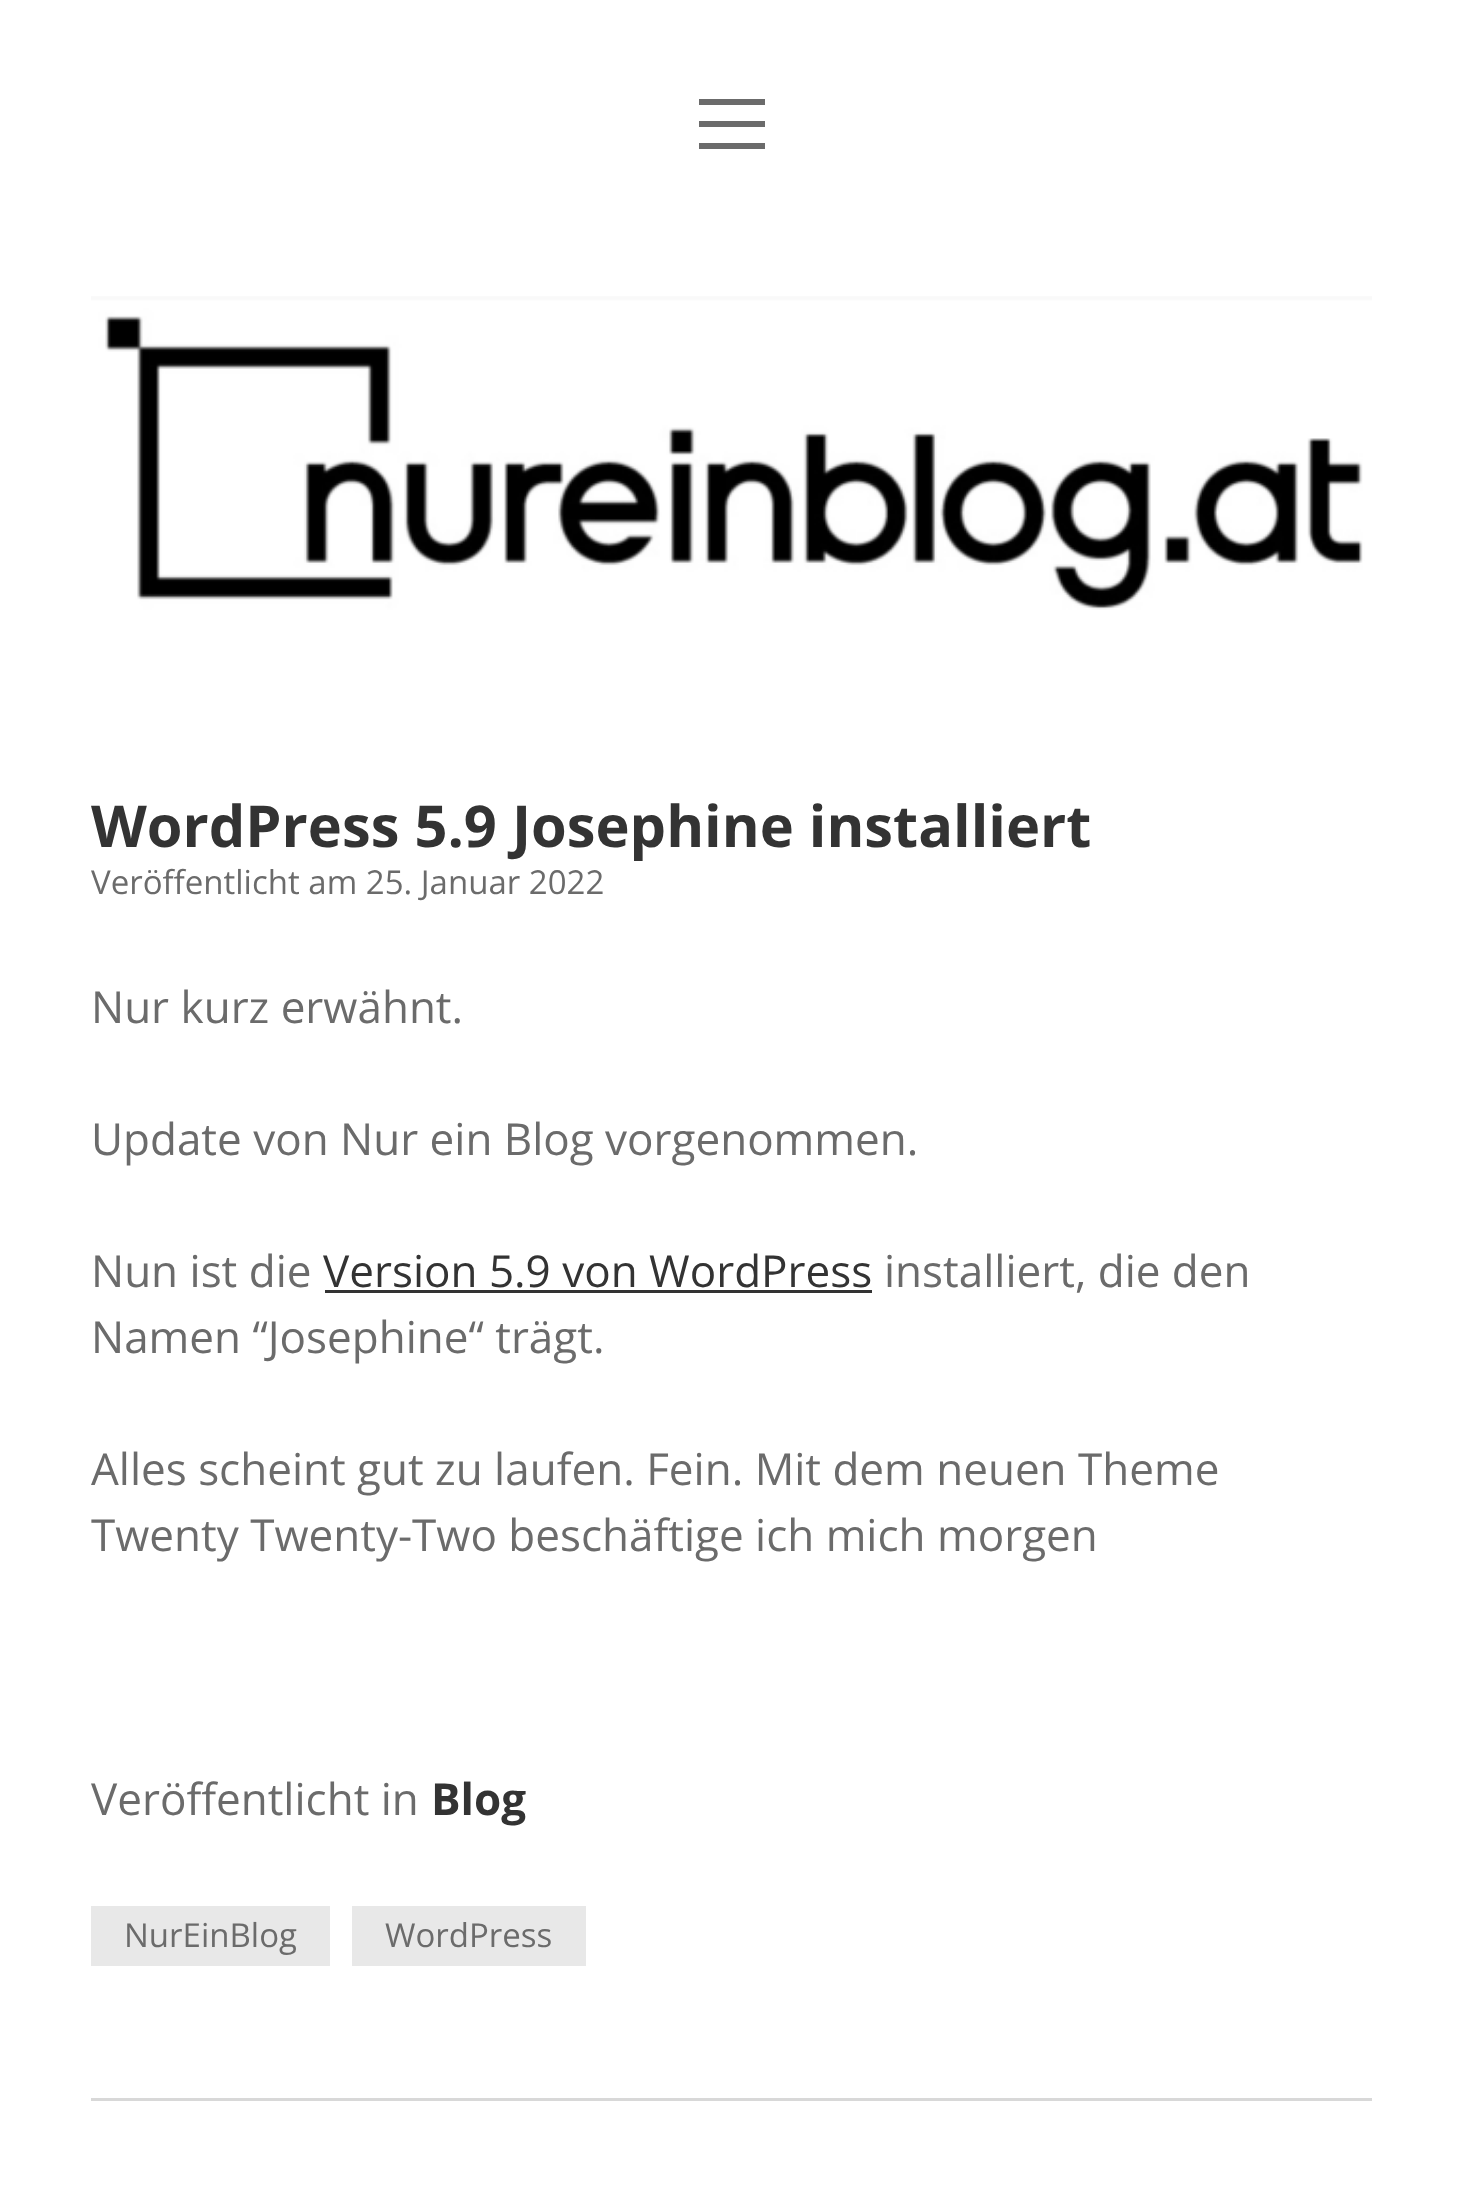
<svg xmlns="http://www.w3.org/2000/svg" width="1461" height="2185">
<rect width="100%" height="100%" fill="#fff"/>
<rect x="699" y="99" width="66" height="6" fill="#6b6b6b"/>
<rect x="699" y="121" width="66" height="6" fill="#6b6b6b"/>
<rect x="699" y="143" width="66" height="6" fill="#6b6b6b"/>
<image x="91" y="296" width="1281" height="314" href="media/1.png"/>
<text x="91" y="847" style="font-family:Open Sans;font-size:57.75px;font-weight:bold;fill:#333">WordPress 5.9 Josephine installiert</text>
<text x="91" y="894" style="font-family:Open Sans;font-size:33px;fill:#6b6b6b">Veröffentlicht am 25. Januar 2022</text>
<text x="91" y="1023" style="font-family:Open Sans;font-size:44px;fill:#6b6b6b">Nur kurz erwähnt.</text>
<text x="91" y="1155" style="font-family:Open Sans;font-size:44px;fill:#6b6b6b">Update von Nur ein Blog vorgenommen.</text>
<text x="91" y="1287" style="font-family:Open Sans;font-size:44px;fill:#6b6b6b">Nun ist die</text>
<text x="323" y="1287" style="font-family:Open Sans;font-size:44px;fill:#333">Version 5.9 von WordPress</text>
<rect x="325" y="1290" width="547" height="3" fill="#333"/>
<text x="884" y="1287" style="font-family:Open Sans;font-size:44px;fill:#6b6b6b">installiert, die den</text>
<text x="91" y="1353" style="font-family:Open Sans;font-size:44px;fill:#6b6b6b">Namen “Josephine“ trägt.</text>
<text x="91" y="1485" style="font-family:Open Sans;font-size:44px;fill:#6b6b6b">Alles scheint gut zu laufen. Fein. Mit dem neuen Theme</text>
<text x="91" y="1551" style="font-family:Open Sans;font-size:44px;fill:#6b6b6b">Twenty Twenty-Two beschäftige ich mich morgen</text>
<text x="91" y="1815" style="font-family:Open Sans;font-size:44px;fill:#6b6b6b">Veröffentlicht in</text>
<text x="431" y="1815" style="font-family:Open Sans;font-size:44px;font-weight:bold;fill:#333">Blog</text>
<rect x="91" y="1906" width="239" height="60" fill="#e8e8e8"/>
<text x="124" y="1947" style="font-family:Open Sans;font-size:33px;fill:#6b6b6b">NurEinBlog</text>
<rect x="352" y="1906" width="234" height="60" fill="#e8e8e8"/>
<text x="385" y="1947" style="font-family:Open Sans;font-size:33px;fill:#6b6b6b">WordPress</text>
<rect x="91" y="2098" width="1281" height="3" fill="#d8d8d8"/>
</svg>
